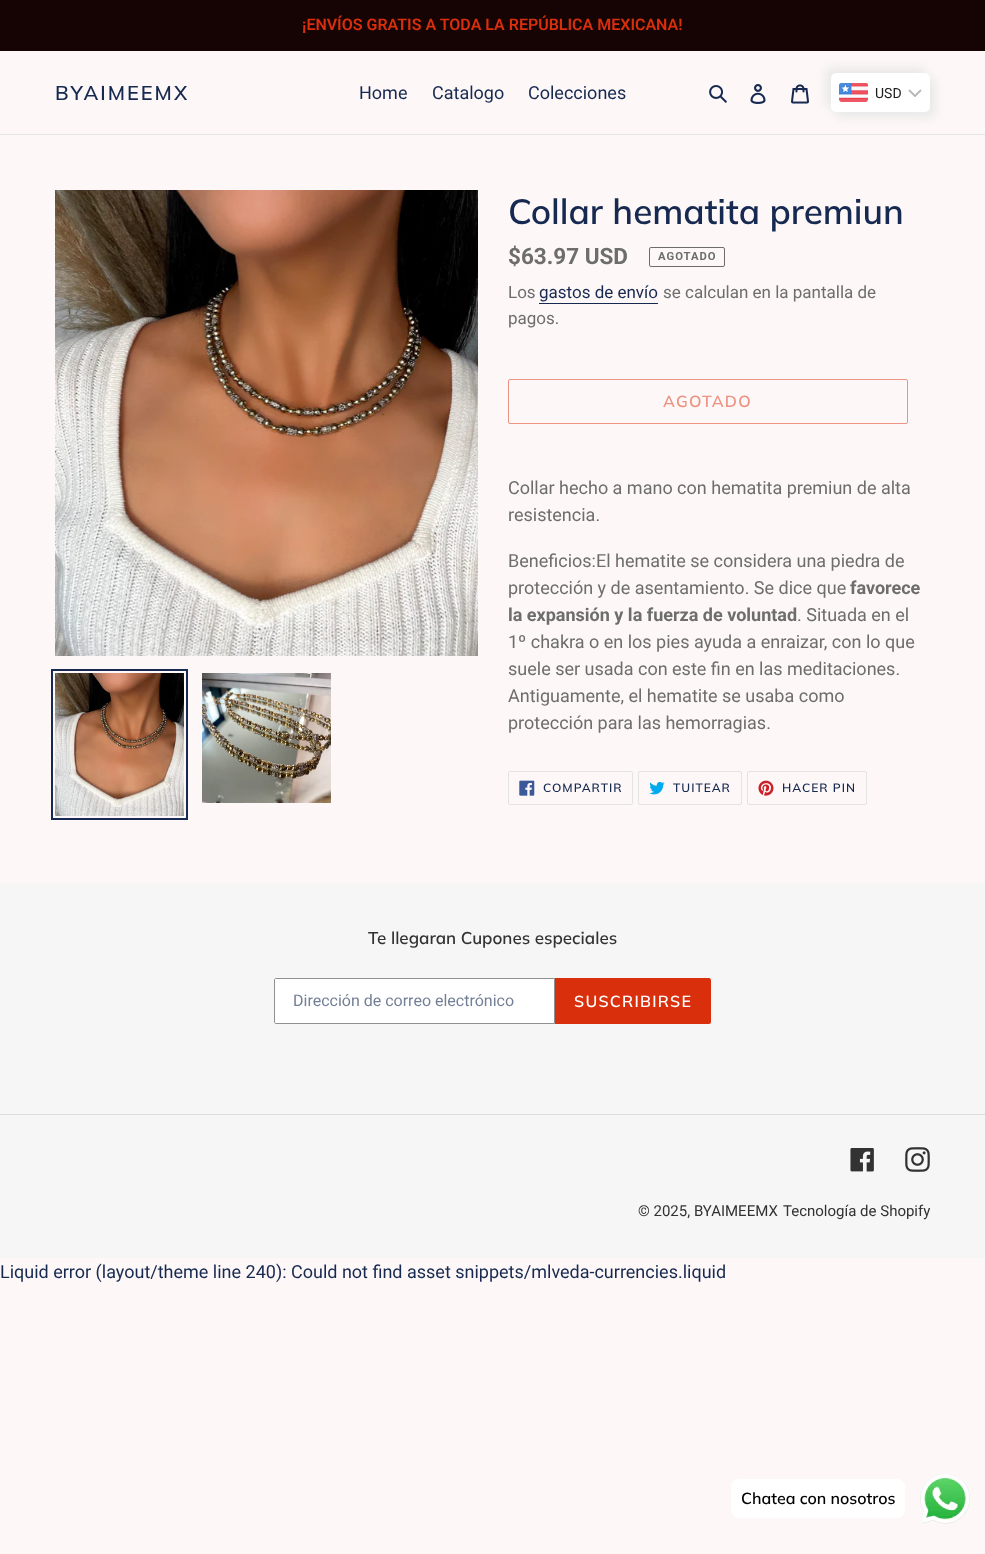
<svg xmlns="http://www.w3.org/2000/svg" width="985" height="1554">
<rect width="100%" height="100%" fill="#fdf7f7"/>
<rect width="985" height="51" fill="#160303"/>
<text x="302" y="30" style="font-family:Roboto;font-size:16px;font-weight:600;fill:#da2f0c">¡ENVÍOS GRATIS A TODA LA REPÚBLICA MEXICANA!</text>
<rect y="134" width="985" height="1" fill="#e4e4e4"/>
<text x="55" y="100" style="font-family:Muli;font-size:20px;font-weight:600;letter-spacing:2px;fill:#162950">BYAIMEEMX</text>
<text x="359" y="99" style="font-family:Roboto;font-size:18px;fill:#162950">Home</text>
<text x="432" y="99" style="font-family:Roboto;font-size:18px;fill:#162950">Catalogo</text>
<text x="528" y="99" style="font-family:Roboto;font-size:18px;fill:#162950">Colecciones</text>
<image x="709" y="85" width="18" height="18" href="media/1.png"/>
<image x="750" y="84" width="16" height="20" href="media/2.png"/>
<image x="791" y="84" width="18" height="20" href="media/3.png"/>
<rect x="826" y="68" width="99" height="39" rx="5" fill="#e8e8e8" filter="blur(5px)"/>
<rect x="836" y="78" width="99" height="39" rx="5" fill="#e8e8e8" filter="blur(5px)"/>
<rect x="831" y="73" width="99" height="39" rx="5" fill="#fff"/>
<image x="839" y="83" width="29" height="19" href="media/4.png"/>
<text x="875" y="98" style="font-family:Roboto;font-size:14px;fill:#1e1e1e">USD</text>
<path d="M909.5 90.5l5.5 5.5l5.5-5.5" fill="none" stroke="#b7b7b7" stroke-width="1.8" stroke-linecap="round" stroke-linejoin="round"/>
<image x="55" y="190" width="423" height="466" href="media/5.png"/>
<rect x="52" y="670" width="135" height="149" fill="none" stroke="#162950" stroke-width="2"/>
<image x="55" y="673" width="129" height="143" href="media/6.png"/>
<image x="202" y="673" width="129" height="130" href="media/7.png"/>
<text x="508" y="224" style="font-family:Muli;font-size:35px;font-weight:600;fill:#162950">Collar hematita premiun</text>
<text x="508" y="264" style="font-family:Roboto;font-size:22.5px;font-weight:bold;fill:#6d6d6d">$63.97 USD</text>
<rect x="649.5" y="247.5" width="75" height="19" rx="1.5" fill="none" stroke="#6d6d6d"/>
<text x="658" y="260" style="font-family:Roboto;font-size:11.25px;font-weight:bold;letter-spacing:1px;fill:#6d6d6d">AGOTADO</text>
<text x="508" y="298" style="font-family:Roboto;font-size:17px;fill:#6d6d6d">Los</text>
<text x="539" y="298" style="font-family:Roboto;font-size:17px;fill:#162950">gastos de envío</text>
<rect x="539" y="303" width="119" height="1" fill="#162950"/>
<text x="663" y="298" style="font-family:Roboto;font-size:17px;fill:#6d6d6d">se calculan en la pantalla de</text>
<text x="508" y="324" style="font-family:Roboto;font-size:17px;fill:#6d6d6d">pagos.</text>
<rect x="508.5" y="379.5" width="399" height="44" rx="1.5" fill="none" stroke="#ec9382"/>
<text x="663" y="407" style="font-family:Muli;font-size:16px;font-weight:600;letter-spacing:1.25px;fill:#ec9382">AGOTADO</text>
<text x="508" y="494" style="font-family:Roboto;font-size:18px;fill:#6d6d6d">Collar hecho a mano con hematita premiun de alta</text>
<text x="508" y="521" style="font-family:Roboto;font-size:18px;fill:#6d6d6d">resistencia.</text>
<text x="508" y="567" style="font-family:Roboto;font-size:18px;fill:#6d6d6d">Beneficios:El hematite se considera una piedra de</text>
<text x="508" y="594" style="font-family:Roboto;font-size:18px;fill:#6d6d6d">protección y de asentamiento. Se dice que</text>
<text x="850" y="594" style="font-family:Roboto;font-size:18px;font-weight:bold;fill:#6d6d6d">favorece</text>
<text x="508" y="621" style="font-family:Roboto;font-size:18px;font-weight:bold;fill:#6d6d6d">la expansión y la fuerza de voluntad</text>
<text x="797" y="621" style="font-family:Roboto;font-size:18px;fill:#6d6d6d">. Situada en el</text>
<text x="508" y="648" style="font-family:Roboto;font-size:18px;fill:#6d6d6d">1º chakra o en los pies ayuda a enraizar, con lo que</text>
<text x="508" y="675" style="font-family:Roboto;font-size:18px;fill:#6d6d6d">suele ser usada con este fin en las meditaciones.</text>
<text x="508" y="702" style="font-family:Roboto;font-size:18px;fill:#6d6d6d">Antiguamente, el hematite se usaba como</text>
<text x="508" y="729" style="font-family:Roboto;font-size:18px;fill:#6d6d6d">protección para las hemorragias.</text>
<rect x="508.5" y="771.5" width="124" height="33" rx="1.5" fill="none" stroke="#e4e4e4"/>
<image x="519" y="780" width="16" height="16" href="media/8.png"/>
<text x="543" y="792" style="font-family:Muli;font-size:12px;font-weight:600;letter-spacing:1px;fill:#162950">COMPARTIR</text>
<rect x="638.5" y="771.5" width="103" height="33" rx="1.5" fill="none" stroke="#e4e4e4"/>
<image x="649" y="781" width="16" height="14" href="media/9.png"/>
<text x="673" y="792" style="font-family:Muli;font-size:12px;font-weight:600;letter-spacing:1px;fill:#162950">TUITEAR</text>
<rect x="747.5" y="771.5" width="119" height="33" rx="1.5" fill="none" stroke="#e4e4e4"/>
<image x="758" y="780" width="16" height="16" href="media/10.png"/>
<text x="782" y="792" style="font-family:Muli;font-size:12px;font-weight:600;letter-spacing:1px;fill:#162950">HACER PIN</text>
<rect y="883" width="985" height="375" fill="#f6f6f6"/>
<text x="368" y="944" style="font-family:Muli;font-size:17px;font-weight:600;fill:#333232">Te llegaran Cupones especiales</text>
<path d="M276 978.5h278.5v45h-278.5c-1 0-1.5-.5-1.5-1.5v-42c0-1 .5-1.5 1.5-1.5z" fill="#fff" stroke="#909090"/>
<text x="293" y="1006" style="font-family:Roboto;font-size:16px;fill:#737f96">Dirección de correo electrónico</text>
<path d="M555 978h154c1 0 2 1 2 2v42c0 1-1 2-2 2h-154z" fill="#da2f0c"/>
<text x="574" y="1007" style="font-family:Muli;font-size:16px;font-weight:600;letter-spacing:1.25px;fill:#fff">SUSCRIBIRSE</text>
<rect y="1114" width="985" height="1" fill="#ddd"/>
<image x="850" y="1148" width="24" height="24" href="media/11.png"/>
<image x="905" y="1147" width="25" height="25" href="media/12.png"/>
<text x="638" y="1216" style="font-family:Roboto;font-size:15px;fill:#333232">© 2025, BYAIMEEMX</text>
<text x="783" y="1216" style="font-family:Roboto;font-size:15px;fill:#333232">Tecnología de Shopify</text>
<text x="0" y="1278" style="font-family:Roboto;font-size:18px;fill:#162950">Liquid error (layout/theme line 240): Could not find asset snippets/mlveda-currencies.liquid</text>
<image x="920" y="1474" width="50" height="50" href="media/13.png"/>
<rect x="731" y="1479" width="174" height="39" rx="8" fill="#fff"/>
<text x="741" y="1504" style="font-family:Muli;font-size:16px;font-weight:600;fill:#000">Chatea con nosotros</text>
</svg>
